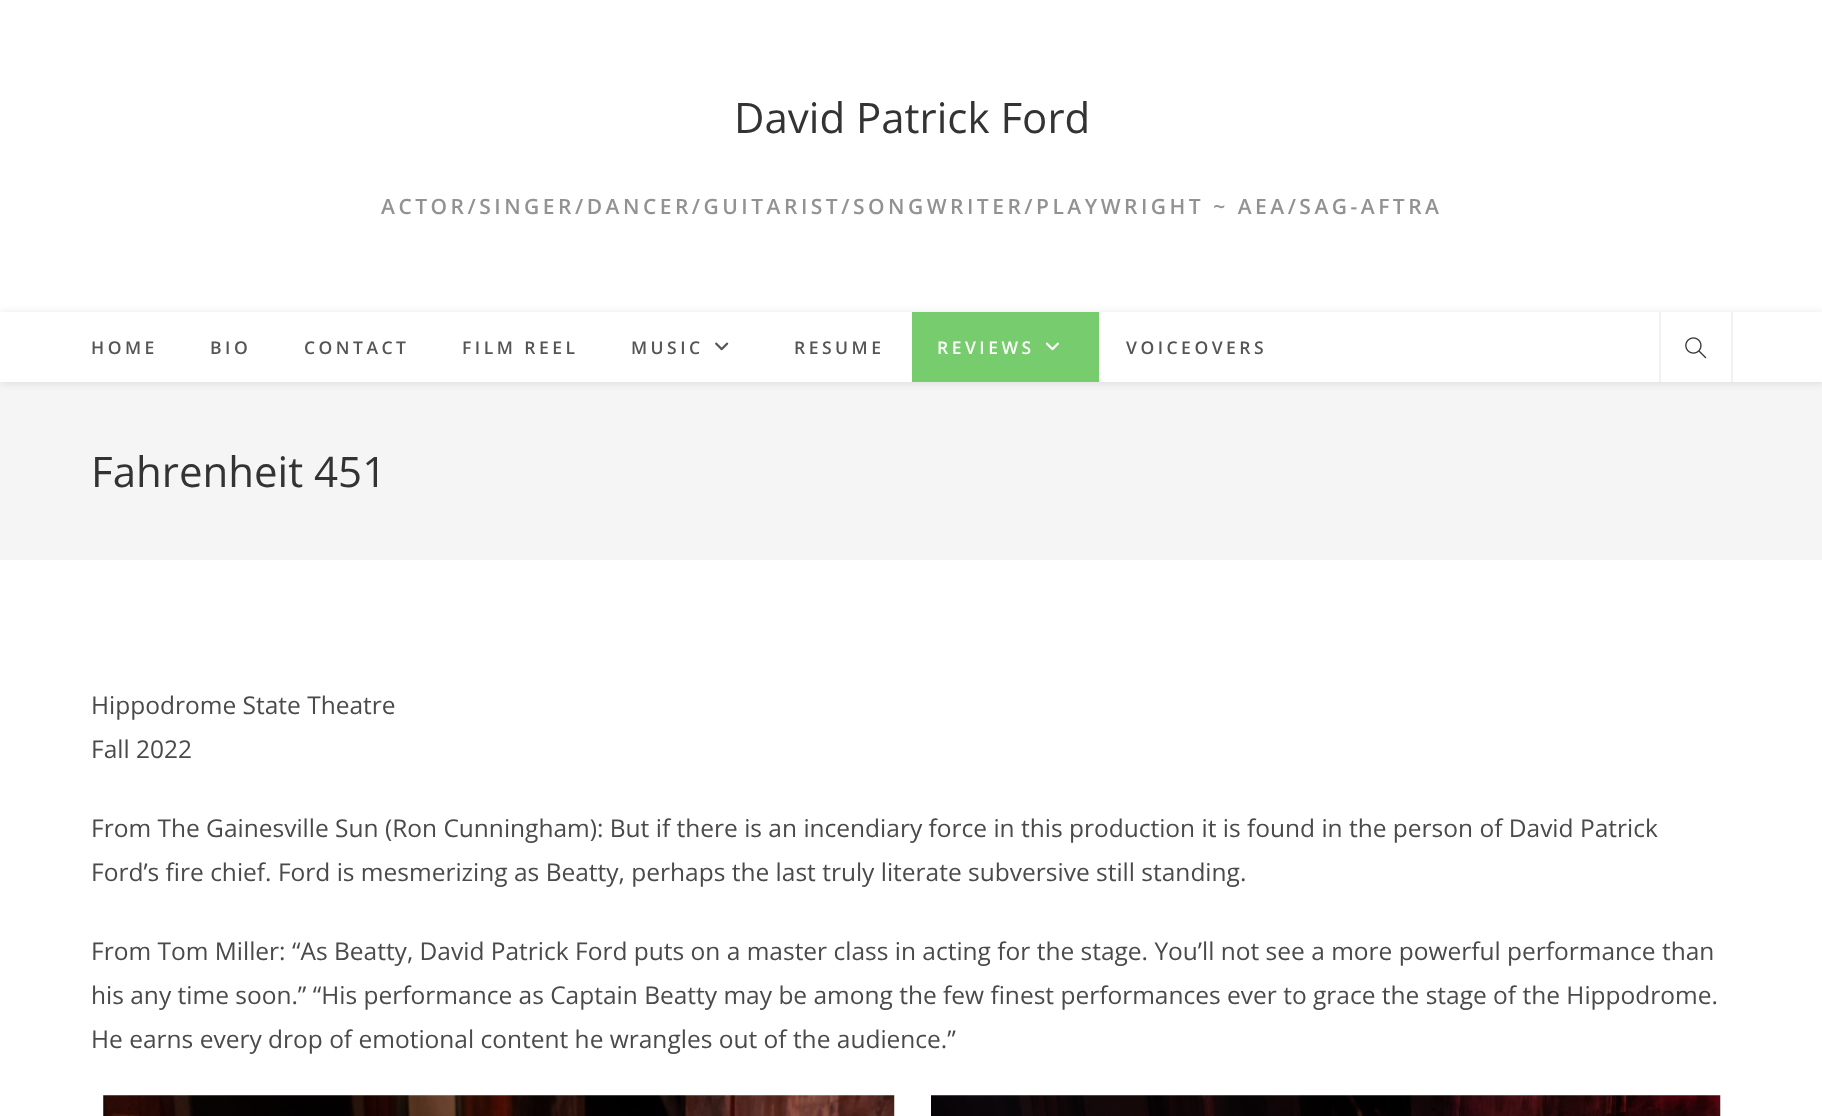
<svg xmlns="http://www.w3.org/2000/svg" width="1822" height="1116">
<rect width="100%" height="100%" fill="#fff"/>
<text x="734" y="133" style="font-family:Open Sans;font-size:42px;fill:#333">David Patrick Ford</text>
<text x="381" y="214" style="font-family:Open Sans;font-size:21px;font-weight:600;letter-spacing:3.5px;fill:#929292">ACTOR/SINGER/DANCER/GUITARIST/SONGWRITER/PLAYWRIGHT ~ AEA/SAG-AFTRA</text>
<rect y="382" width="1822" height="178" fill="#f5f5f5"/>
<rect y="313" width="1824" height="70" fill="#0000001a" filter="blur(4.5px)"/>
<rect y="312" width="1822" height="70" fill="#fff"/>
<text x="91" y="354" style="font-family:Open Sans;font-size:17.5px;font-weight:600;letter-spacing:3.5px;fill:#555">HOME</text>
<text x="210" y="354" style="font-family:Open Sans;font-size:17.5px;font-weight:600;letter-spacing:3.5px;fill:#555">BIO</text>
<text x="304" y="354" style="font-family:Open Sans;font-size:17.5px;font-weight:600;letter-spacing:3.5px;fill:#555">CONTACT</text>
<text x="462" y="354" style="font-family:Open Sans;font-size:17.5px;font-weight:600;letter-spacing:3.5px;fill:#555">FILM REEL</text>
<text x="631" y="354" style="font-family:Open Sans;font-size:17.5px;font-weight:600;letter-spacing:3.5px;fill:#555">MUSIC</text>
<image x="715" y="342" width="14" height="9" href="media/1.png"/>
<text x="794" y="354" style="font-family:Open Sans;font-size:17.5px;font-weight:600;letter-spacing:3.5px;fill:#555">RESUME</text>
<rect x="912" y="312" width="187" height="70" fill="#77cc6d"/>
<text x="937" y="354" style="font-family:Open Sans;font-size:17.5px;font-weight:600;letter-spacing:3.5px;fill:#fff">REVIEWS</text>
<image x="1045" y="342" width="14" height="9" href="media/2.png"/>
<text x="1126" y="354" style="font-family:Open Sans;font-size:17.5px;font-weight:600;letter-spacing:3.5px;fill:#555">VOICEOVERS</text>
<rect x="1731" y="312" width="2" height="70" fill="#f1f1f1"/>
<rect x="1659" y="312" width="2" height="70" fill="#f1f1f1"/>
<image x="1685" y="337" width="22" height="22" href="media/3.png"/>
<text x="91" y="487" style="font-family:Open Sans;font-size:42px;fill:#333">Fahrenheit 451</text>
<text x="91" y="714" style="font-family:Open Sans;font-size:24.5px;fill:#4a4a4a">Hippodrome State Theatre</text>
<text x="91" y="758" style="font-family:Open Sans;font-size:24.5px;fill:#4a4a4a">Fall 2022</text>
<text x="91" y="837" style="font-family:Open Sans;font-size:24.5px;fill:#4a4a4a">From The Gainesville Sun (Ron Cunningham): But if there is an incendiary force in this production it is found in the person of David Patrick</text>
<text x="91" y="881" style="font-family:Open Sans;font-size:24.5px;fill:#4a4a4a">Ford’s fire chief. Ford is mesmerizing as Beatty, perhaps the last truly literate subversive still standing.</text>
<text x="91" y="960" style="font-family:Open Sans;font-size:24.5px;fill:#4a4a4a">From Tom Miller: “As Beatty, David Patrick Ford puts on a master class in acting for the stage. You’ll not see a more powerful performance than</text>
<text x="91" y="1004" style="font-family:Open Sans;font-size:24.5px;fill:#4a4a4a">his any time soon.” “His performance as Captain Beatty may be among the few finest performances ever to grace the stage of the Hippodrome.</text>
<text x="91" y="1048" style="font-family:Open Sans;font-size:24.5px;fill:#4a4a4a">He earns every drop of emotional content he wrangles out of the audience.”</text>
<image x="103" y="1095" width="792" height="21" href="media/4.png"/>
<image x="931" y="1095" width="790" height="21" href="media/5.png"/>
</svg>
